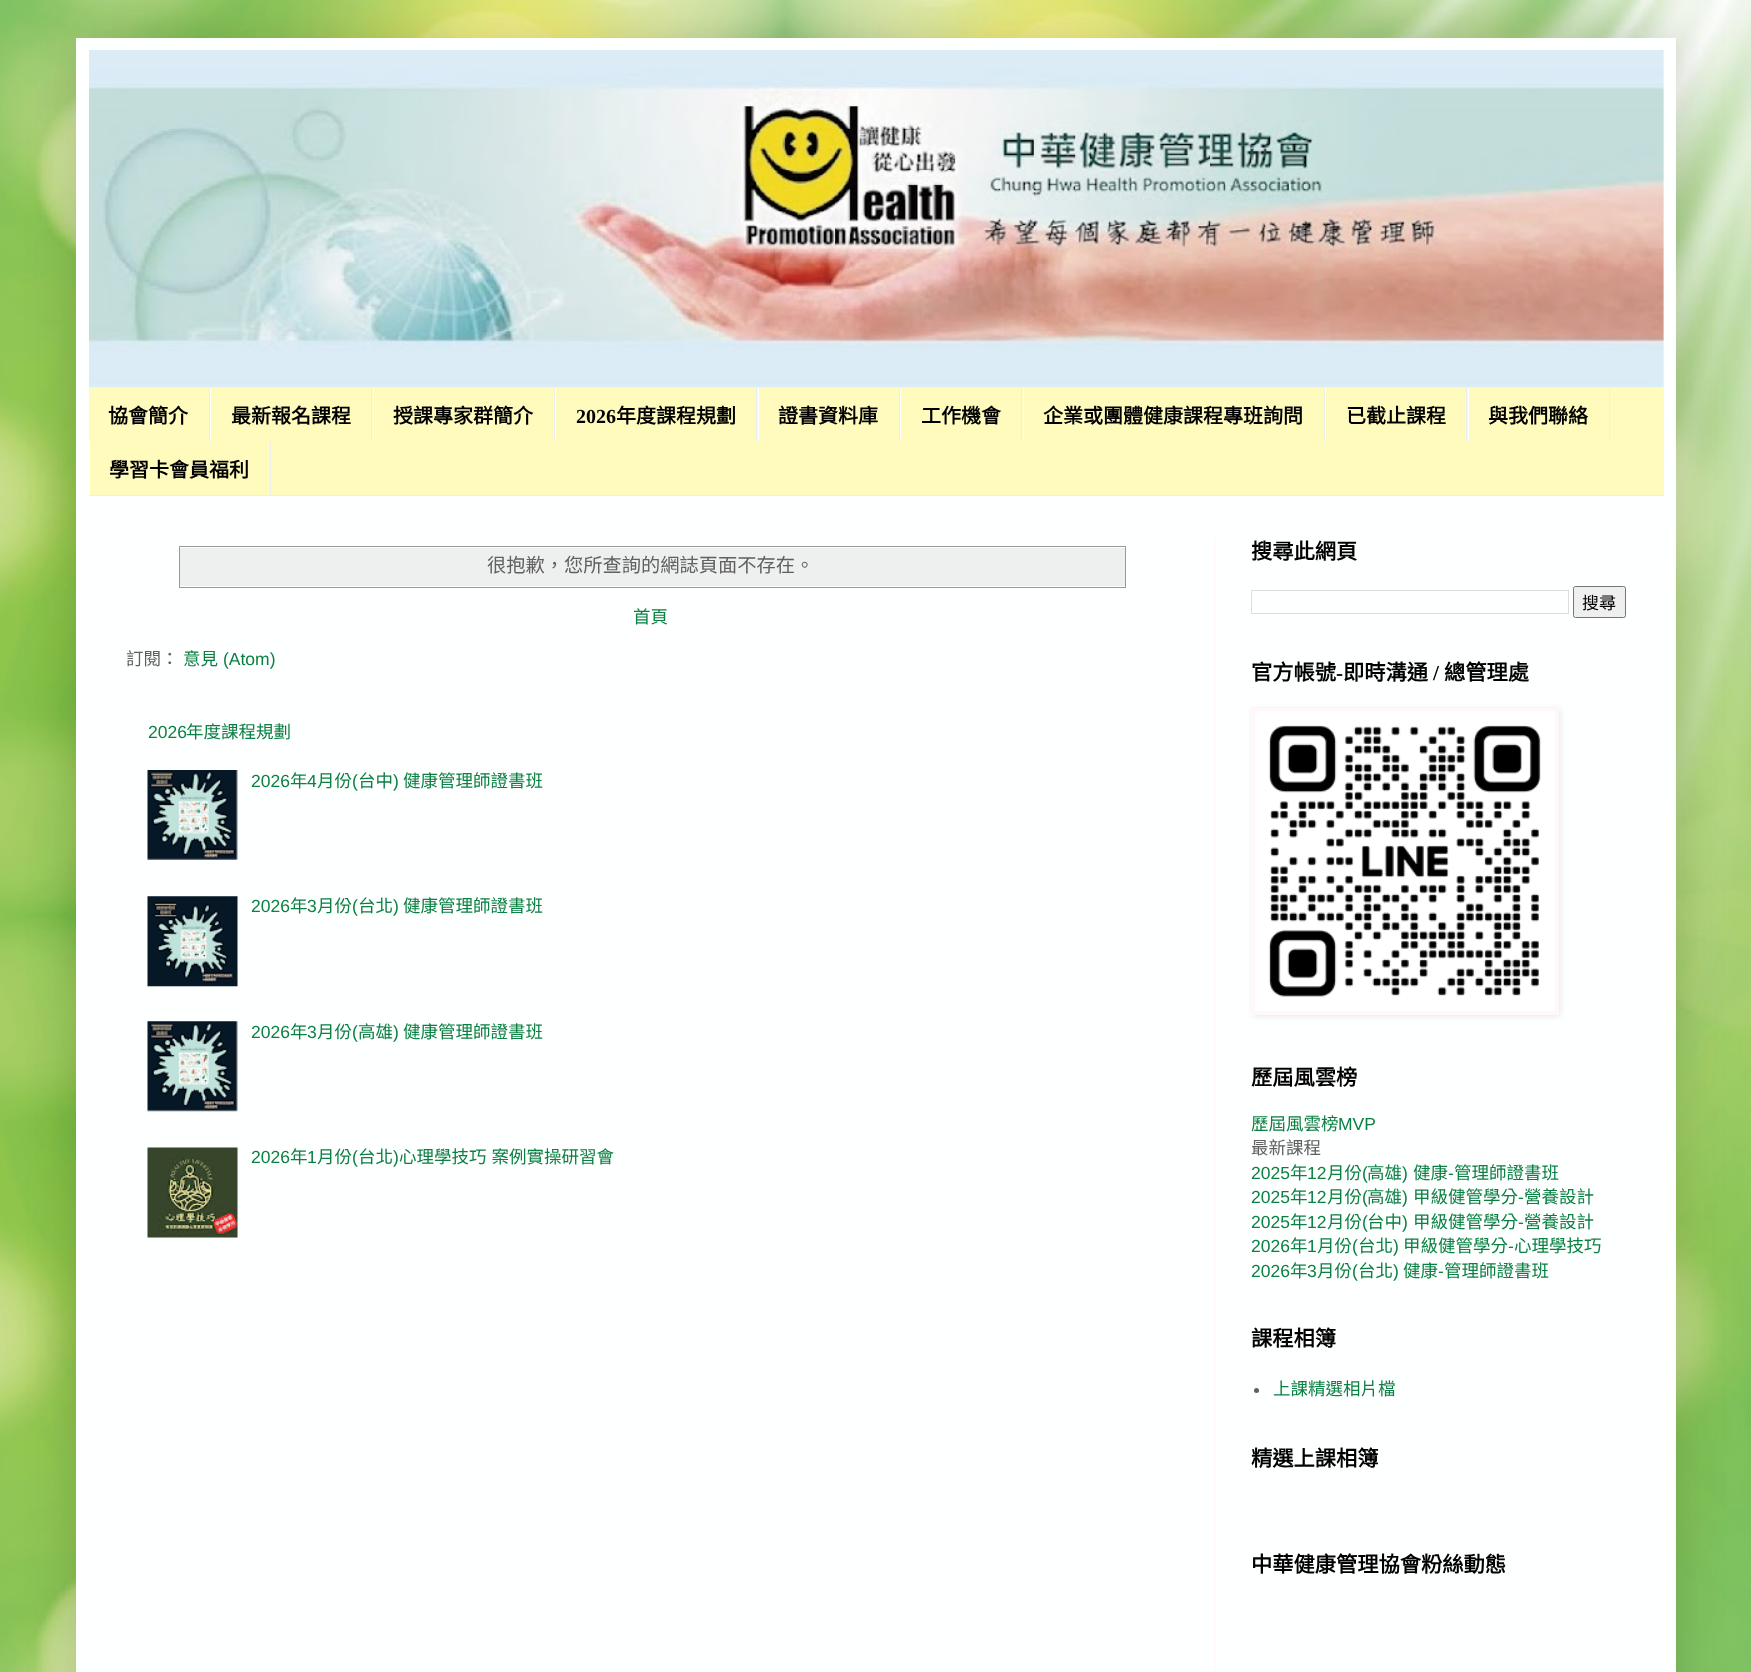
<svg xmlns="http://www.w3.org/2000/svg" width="1751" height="1672">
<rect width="100%" height="100%" fill="#fff"/>
<image x="0" y="0" width="1751" height="1672" href="media/1.png"/>
<rect x="76" y="38" width="1600" height="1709" fill="#00000026" filter="blur(25px)"/>
<rect x="76" y="38" width="1600" height="1634" fill="#feffff"/>
<rect x="89" y="50" width="1575" height="338" fill="#fff7f8"/>
<image x="89" y="50" width="1575" height="338" href="media/2.png"/>
<rect x="89" y="388" width="1575" height="107" fill="#fffbbd"/>
<rect x="89" y="495" width="1575" height="1" fill="#eee"/>
<rect x="209" y="388" width="1" height="53" fill="#eee"/>
<text x="108" y="423" style="font-family:Noto Sans CJK TC;font-size:20px;font-weight:bold;fill:#000">協會簡介</text>
<rect x="371" y="388" width="1" height="53" fill="#eee"/>
<rect x="210" y="388" width="1" height="53" fill="#feffff"/>
<text x="231" y="423" style="font-family:Noto Sans CJK TC;font-size:20px;font-weight:bold;fill:#000">最新報名課程</text>
<rect x="554" y="388" width="1" height="53" fill="#eee"/>
<rect x="373" y="388" width="1" height="53" fill="#feffff"/>
<text x="393" y="423" style="font-family:Noto Sans CJK TC;font-size:20px;font-weight:bold;fill:#000">授課專家群簡介</text>
<rect x="756" y="388" width="1" height="53" fill="#eee"/>
<rect x="555" y="388" width="1" height="53" fill="#feffff"/>
<text x="576" y="423" style="font-family:Liberation Serif;font-size:20px;font-weight:bold;fill:#000">2026</text>
<text x="616" y="423" style="font-family:Noto Sans CJK TC;font-size:20px;font-weight:bold;fill:#000">年度課程規劃</text>
<rect x="899" y="388" width="1" height="53" fill="#eee"/>
<rect x="758" y="388" width="1" height="53" fill="#feffff"/>
<text x="778" y="423" style="font-family:Noto Sans CJK TC;font-size:20px;font-weight:bold;fill:#000">證書資料庫</text>
<rect x="1021" y="388" width="1" height="53" fill="#eee"/>
<rect x="900" y="388" width="1" height="53" fill="#feffff"/>
<text x="921" y="423" style="font-family:Noto Sans CJK TC;font-size:20px;font-weight:bold;fill:#000">工作機會</text>
<rect x="1324" y="388" width="1" height="53" fill="#eee"/>
<rect x="1023" y="388" width="1" height="53" fill="#feffff"/>
<text x="1043" y="423" style="font-family:Noto Sans CJK TC;font-size:20px;font-weight:bold;fill:#000">企業或團體健康課程專班詢問</text>
<rect x="1466" y="388" width="1" height="53" fill="#eee"/>
<rect x="1325" y="388" width="1" height="53" fill="#feffff"/>
<text x="1346" y="423" style="font-family:Noto Sans CJK TC;font-size:20px;font-weight:bold;fill:#000">已截止課程</text>
<rect x="1609" y="388" width="1" height="53" fill="#eee"/>
<rect x="1468" y="388" width="1" height="53" fill="#feffff"/>
<text x="1488" y="423" style="font-family:Noto Sans CJK TC;font-size:20px;font-weight:bold;fill:#000">與我們聯絡</text>
<rect x="270" y="441" width="1" height="54" fill="#eee"/>
<rect x="89" y="441" width="1" height="54" fill="#feffff"/>
<text x="109" y="477" style="font-family:Noto Sans CJK TC;font-size:20px;font-weight:bold;fill:#000">學習卡會員福利</text>
<rect x="1214" y="534" width="1" height="1138" fill="#fff7f8"/>
<rect x="179.5" y="546.5" width="946" height="41" fill="none" stroke="#989999"/>
<rect x="180" y="548" width="945" height="38" fill="#eeefef"/>
<text x="487" y="572" style="font-family:Noto Sans CJK TC;font-size:19.25px;fill:#606060">很抱歉，您所查詢的網誌頁面不存在。</text>
<text x="633" y="623" style="font-family:Noto Sans CJK TC;font-size:17.5px;fill:#0b8043">首頁</text>
<text x="126" y="665" style="font-family:Noto Sans CJK TC;font-size:17.5px;fill:#606060">訂閱：</text>
<text x="183" y="665" style="font-family:Noto Sans CJK TC;font-size:17.5px;fill:#0b8043">意見</text>
<text x="223" y="665" style="font-family:Liberation Sans;font-size:17.5px;fill:#0b8043">(Atom)</text>
<text x="148" y="738" style="font-family:Liberation Sans;font-size:17.5px;fill:#0b8043">2026</text>
<text x="186" y="738" style="font-family:Noto Sans CJK TC;font-size:17.5px;fill:#0b8043">年度課程規劃</text>
<image x="147" y="770" width="91" height="90" href="media/3.png"/>
<text x="251" y="787" style="font-family:Liberation Sans;font-size:17.5px;fill:#0b8043">2026</text>
<text x="290" y="787" style="font-family:Noto Sans CJK TC;font-size:17.5px;fill:#0b8043">年</text>
<text x="307" y="787" style="font-family:Liberation Sans;font-size:17.5px;fill:#0b8043">4</text>
<text x="317" y="787" style="font-family:Noto Sans CJK TC;font-size:17.5px;fill:#0b8043">月份</text>
<text x="352" y="787" style="font-family:Liberation Sans;font-size:17.5px;fill:#0b8043">(</text>
<text x="358" y="787" style="font-family:Noto Sans CJK TC;font-size:17.5px;fill:#0b8043">台中</text>
<text x="393" y="787" style="font-family:Liberation Sans;font-size:17.5px;fill:#0b8043">)</text>
<text x="403" y="787" style="font-family:Noto Sans CJK TC;font-size:17.5px;fill:#0b8043">健康管理師證書班</text>
<image x="147" y="896" width="91" height="91" href="media/4.png"/>
<text x="251" y="912" style="font-family:Liberation Sans;font-size:17.5px;fill:#0b8043">2026</text>
<text x="290" y="912" style="font-family:Noto Sans CJK TC;font-size:17.5px;fill:#0b8043">年</text>
<text x="307" y="912" style="font-family:Liberation Sans;font-size:17.5px;fill:#0b8043">3</text>
<text x="317" y="912" style="font-family:Noto Sans CJK TC;font-size:17.5px;fill:#0b8043">月份</text>
<text x="352" y="912" style="font-family:Liberation Sans;font-size:17.5px;fill:#0b8043">(</text>
<text x="358" y="912" style="font-family:Noto Sans CJK TC;font-size:17.5px;fill:#0b8043">台北</text>
<text x="393" y="912" style="font-family:Liberation Sans;font-size:17.5px;fill:#0b8043">)</text>
<text x="403" y="912" style="font-family:Noto Sans CJK TC;font-size:17.5px;fill:#0b8043">健康管理師證書班</text>
<image x="147" y="1021" width="91" height="91" href="media/5.png"/>
<text x="251" y="1038" style="font-family:Liberation Sans;font-size:17.5px;fill:#0b8043">2026</text>
<text x="290" y="1038" style="font-family:Noto Sans CJK TC;font-size:17.5px;fill:#0b8043">年</text>
<text x="307" y="1038" style="font-family:Liberation Sans;font-size:17.5px;fill:#0b8043">3</text>
<text x="317" y="1038" style="font-family:Noto Sans CJK TC;font-size:17.5px;fill:#0b8043">月份</text>
<text x="352" y="1038" style="font-family:Liberation Sans;font-size:17.5px;fill:#0b8043">(</text>
<text x="358" y="1038" style="font-family:Noto Sans CJK TC;font-size:17.5px;fill:#0b8043">高雄</text>
<text x="393" y="1038" style="font-family:Liberation Sans;font-size:17.5px;fill:#0b8043">)</text>
<text x="403" y="1038" style="font-family:Noto Sans CJK TC;font-size:17.5px;fill:#0b8043">健康管理師證書班</text>
<image x="147" y="1147" width="91" height="91" href="media/6.png"/>
<text x="251" y="1163" style="font-family:Liberation Sans;font-size:17.5px;fill:#0b8043">2026</text>
<text x="290" y="1163" style="font-family:Noto Sans CJK TC;font-size:17.5px;fill:#0b8043">年</text>
<text x="307" y="1163" style="font-family:Liberation Sans;font-size:17.5px;fill:#0b8043">1</text>
<text x="317" y="1163" style="font-family:Noto Sans CJK TC;font-size:17.5px;fill:#0b8043">月份</text>
<text x="352" y="1163" style="font-family:Liberation Sans;font-size:17.5px;fill:#0b8043">(</text>
<text x="358" y="1163" style="font-family:Noto Sans CJK TC;font-size:17.5px;fill:#0b8043">台北</text>
<text x="393" y="1163" style="font-family:Liberation Sans;font-size:17.5px;fill:#0b8043">)</text>
<text x="399" y="1163" word-spacing="1" style="font-family:Noto Sans CJK TC;font-size:17.5px;fill:#0b8043">心理學技巧 案例實操研習會</text>
<text x="1251" y="559" style="font-family:Noto Sans CJK TC;font-size:21.25px;font-weight:bold;fill:#000">搜尋此網頁</text>
<rect x="1251.5" y="590.5" width="317" height="23" fill="none" stroke="#ddd"/>
<rect x="1573.5" y="586.5" width="52" height="31" rx="2" fill="#efefef" stroke="#767676"/>
<text x="1582" y="609" style="font-family:Noto Sans CJK TC;font-size:17px;fill:#000">搜尋</text>
<text x="1251" y="680" style="font-family:Noto Sans CJK TC;font-size:21.25px;font-weight:bold;fill:#000">官方帳號</text>
<text x="1336" y="680" style="font-family:Liberation Serif;font-size:21.25px;font-weight:bold;fill:#000">-</text>
<text x="1343" y="680" style="font-family:Noto Sans CJK TC;font-size:21.25px;font-weight:bold;fill:#000">即時溝通</text>
<text x="1433" y="680" style="font-family:Liberation Serif;font-size:21.25px;font-weight:bold;fill:#000">/</text>
<text x="1444" y="680" style="font-family:Noto Sans CJK TC;font-size:21.25px;font-weight:bold;fill:#000">總管理處</text>
<rect x="1253" y="709" width="307" height="307" fill="#0000001a" filter="blur(3px)"/>
<rect x="1251" y="708" width="308" height="307" fill="#fff7f8"/>
<image x="1255" y="711" width="300" height="300" href="media/7.png"/>
<text x="1251" y="1085" style="font-family:Noto Sans CJK TC;font-size:21.25px;font-weight:bold;fill:#000">歷屆風雲榜</text>
<text x="1251" y="1130" style="font-family:Noto Sans CJK TC;font-size:17.5px;fill:#0b8043">歷屆風雲榜</text>
<text x="1338" y="1130" style="font-family:Liberation Sans;font-size:17.5px;fill:#0b8043">MVP</text>
<text x="1251" y="1154" style="font-family:Noto Sans CJK TC;font-size:17.5px;fill:#606060">最新課程</text>
<text x="1251" y="1179" style="font-family:Liberation Sans;font-size:17.5px;fill:#0b8043">2025</text>
<text x="1290" y="1179" style="font-family:Noto Sans CJK TC;font-size:17.5px;fill:#0b8043">年</text>
<text x="1307" y="1179" style="font-family:Liberation Sans;font-size:17.5px;fill:#0b8043">12</text>
<text x="1327" y="1179" style="font-family:Noto Sans CJK TC;font-size:17.5px;fill:#0b8043">月份</text>
<text x="1362" y="1179" style="font-family:Liberation Sans;font-size:17.5px;fill:#0b8043">(</text>
<text x="1367" y="1179" style="font-family:Noto Sans CJK TC;font-size:17.5px;fill:#0b8043">高雄</text>
<text x="1402" y="1179" style="font-family:Liberation Sans;font-size:17.5px;fill:#0b8043">)</text>
<text x="1413" y="1179" style="font-family:Noto Sans CJK TC;font-size:17.5px;fill:#0b8043">健康</text>
<text x="1448" y="1179" style="font-family:Liberation Sans;font-size:17.5px;fill:#0b8043">-</text>
<text x="1454" y="1179" style="font-family:Noto Sans CJK TC;font-size:17.5px;fill:#0b8043">管理師證書班</text>
<text x="1251" y="1203" style="font-family:Liberation Sans;font-size:17.5px;fill:#0b8043">2025</text>
<text x="1290" y="1203" style="font-family:Noto Sans CJK TC;font-size:17.5px;fill:#0b8043">年</text>
<text x="1307" y="1203" style="font-family:Liberation Sans;font-size:17.5px;fill:#0b8043">12</text>
<text x="1327" y="1203" style="font-family:Noto Sans CJK TC;font-size:17.5px;fill:#0b8043">月份</text>
<text x="1362" y="1203" style="font-family:Liberation Sans;font-size:17.5px;fill:#0b8043">(</text>
<text x="1367" y="1203" style="font-family:Noto Sans CJK TC;font-size:17.5px;fill:#0b8043">高雄</text>
<text x="1402" y="1203" style="font-family:Liberation Sans;font-size:17.5px;fill:#0b8043">)</text>
<text x="1413" y="1203" style="font-family:Noto Sans CJK TC;font-size:17.5px;fill:#0b8043">甲級健管學分</text>
<text x="1518" y="1203" style="font-family:Liberation Sans;font-size:17.5px;fill:#0b8043">-</text>
<text x="1524" y="1203" style="font-family:Noto Sans CJK TC;font-size:17.5px;fill:#0b8043">營養設計</text>
<text x="1251" y="1228" style="font-family:Liberation Sans;font-size:17.5px;fill:#0b8043">2025</text>
<text x="1290" y="1228" style="font-family:Noto Sans CJK TC;font-size:17.5px;fill:#0b8043">年</text>
<text x="1307" y="1228" style="font-family:Liberation Sans;font-size:17.5px;fill:#0b8043">12</text>
<text x="1327" y="1228" style="font-family:Noto Sans CJK TC;font-size:17.5px;fill:#0b8043">月份</text>
<text x="1362" y="1228" style="font-family:Liberation Sans;font-size:17.5px;fill:#0b8043">(</text>
<text x="1367" y="1228" style="font-family:Noto Sans CJK TC;font-size:17.5px;fill:#0b8043">台中</text>
<text x="1402" y="1228" style="font-family:Liberation Sans;font-size:17.5px;fill:#0b8043">)</text>
<text x="1413" y="1228" style="font-family:Noto Sans CJK TC;font-size:17.5px;fill:#0b8043">甲級健管學分</text>
<text x="1518" y="1228" style="font-family:Liberation Sans;font-size:17.5px;fill:#0b8043">-</text>
<text x="1524" y="1228" style="font-family:Noto Sans CJK TC;font-size:17.5px;fill:#0b8043">營養設計</text>
<text x="1251" y="1252" style="font-family:Liberation Sans;font-size:17.5px;fill:#0b8043">2026</text>
<text x="1290" y="1252" style="font-family:Noto Sans CJK TC;font-size:17.5px;fill:#0b8043">年</text>
<text x="1307" y="1252" style="font-family:Liberation Sans;font-size:17.5px;fill:#0b8043">1</text>
<text x="1317" y="1252" style="font-family:Noto Sans CJK TC;font-size:17.5px;fill:#0b8043">月份</text>
<text x="1352" y="1252" style="font-family:Liberation Sans;font-size:17.5px;fill:#0b8043">(</text>
<text x="1358" y="1252" style="font-family:Noto Sans CJK TC;font-size:17.5px;fill:#0b8043">台北</text>
<text x="1393" y="1252" style="font-family:Liberation Sans;font-size:17.5px;fill:#0b8043">)</text>
<text x="1403" y="1252" style="font-family:Noto Sans CJK TC;font-size:17.5px;fill:#0b8043">甲級健管學分</text>
<text x="1508" y="1252" style="font-family:Liberation Sans;font-size:17.5px;fill:#0b8043">-</text>
<text x="1514" y="1252" style="font-family:Noto Sans CJK TC;font-size:17.5px;fill:#0b8043">心理學技巧</text>
<text x="1251" y="1277" style="font-family:Liberation Sans;font-size:17.5px;fill:#0b8043">2026</text>
<text x="1290" y="1277" style="font-family:Noto Sans CJK TC;font-size:17.5px;fill:#0b8043">年</text>
<text x="1307" y="1277" style="font-family:Liberation Sans;font-size:17.5px;fill:#0b8043">3</text>
<text x="1317" y="1277" style="font-family:Noto Sans CJK TC;font-size:17.5px;fill:#0b8043">月份</text>
<text x="1352" y="1277" style="font-family:Liberation Sans;font-size:17.5px;fill:#0b8043">(</text>
<text x="1358" y="1277" style="font-family:Noto Sans CJK TC;font-size:17.5px;fill:#0b8043">台北</text>
<text x="1393" y="1277" style="font-family:Liberation Sans;font-size:17.5px;fill:#0b8043">)</text>
<text x="1403" y="1277" style="font-family:Noto Sans CJK TC;font-size:17.5px;fill:#0b8043">健康</text>
<text x="1438" y="1277" style="font-family:Liberation Sans;font-size:17.5px;fill:#0b8043">-</text>
<text x="1444" y="1277" style="font-family:Noto Sans CJK TC;font-size:17.5px;fill:#0b8043">管理師證書班</text>
<text x="1251" y="1346" style="font-family:Noto Sans CJK TC;font-size:21.25px;font-weight:bold;fill:#000">課程相簿</text>
<circle cx="1256.5" cy="1390.5" r="2.5" fill="#606060"/>
<text x="1273" y="1395" style="font-family:Noto Sans CJK TC;font-size:17.5px;fill:#0b8043">上課精選相片檔</text>
<text x="1251" y="1466" style="font-family:Noto Sans CJK TC;font-size:21.25px;font-weight:bold;fill:#000">精選上課相簿</text>
<text x="1251" y="1572" style="font-family:Noto Sans CJK TC;font-size:21.25px;font-weight:bold;fill:#000">中華健康管理協會粉絲動態</text>
</svg>
